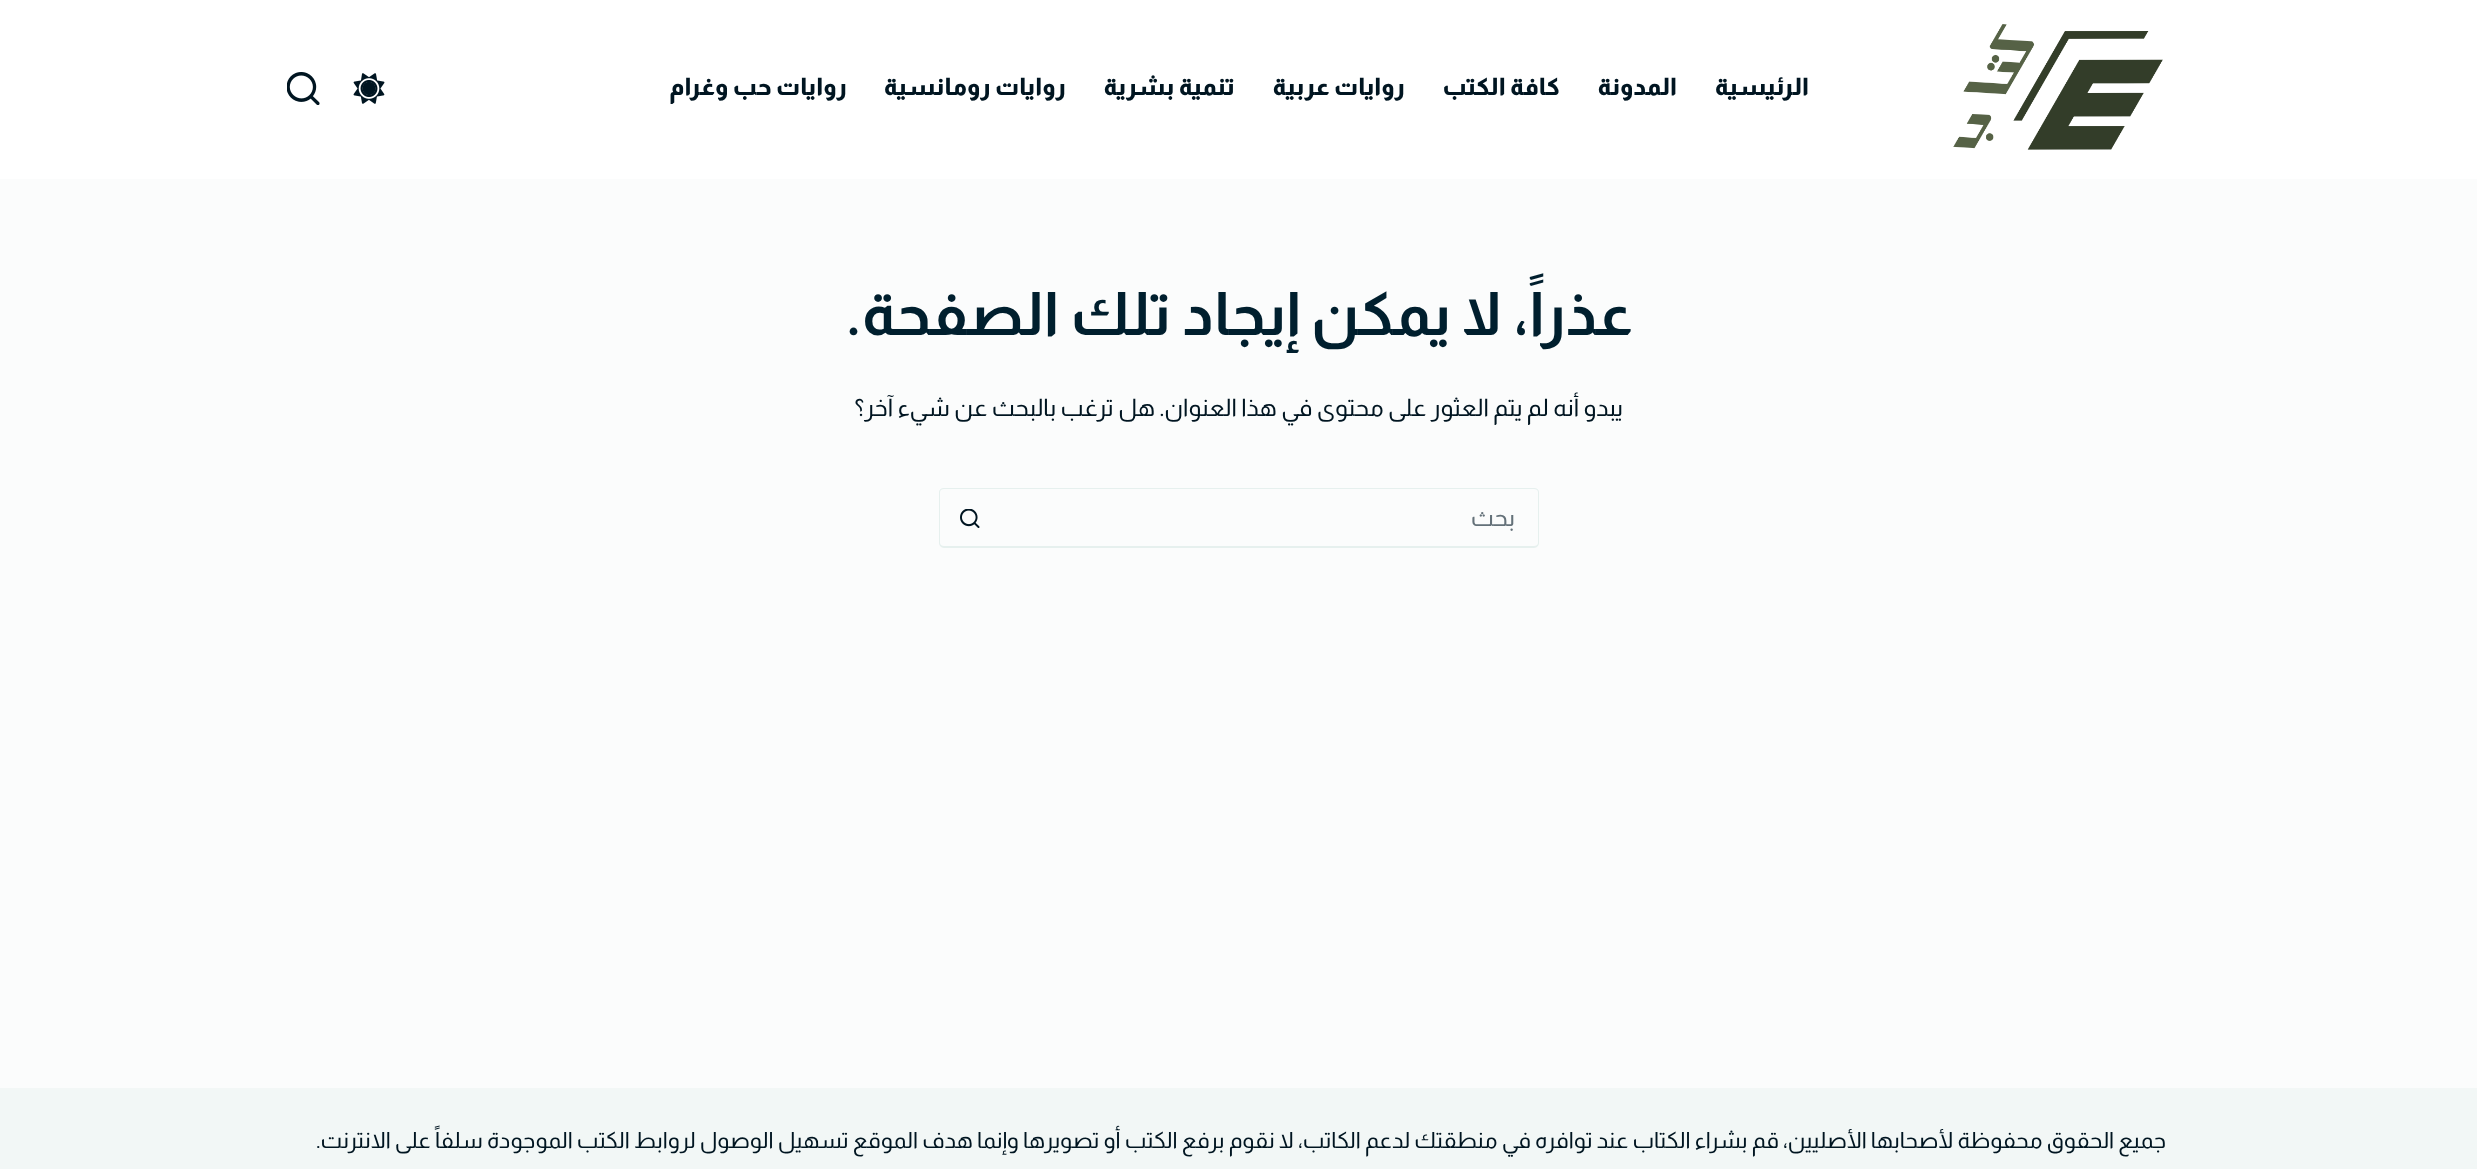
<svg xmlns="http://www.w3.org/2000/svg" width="2477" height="1169">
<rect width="100%" height="100%" fill="#fbfcfc"/>
<rect width="2477" height="179" fill="#fff"/>
<image x="1953" y="24" width="210" height="126" href="media/1.png"/>
<text x="1809" y="95" style="font-family:Almarai;font-size:24px;font-weight:800;direction:rtl;fill:#001521">الرئيسية</text>
<text x="1677" y="95" style="font-family:Almarai;font-size:24px;font-weight:800;direction:rtl;fill:#001521">المدونة</text>
<text x="1560" y="95" style="font-family:Almarai;font-size:24px;font-weight:800;direction:rtl;fill:#001521">كافة الكتب</text>
<text x="1405" y="95" style="font-family:Almarai;font-size:24px;font-weight:800;direction:rtl;fill:#001521">روايات عربية</text>
<text x="1235" y="95" style="font-family:Almarai;font-size:24px;font-weight:800;direction:rtl;fill:#001521">تنمية بشرية</text>
<text x="1066" y="95" style="font-family:Almarai;font-size:24px;font-weight:800;direction:rtl;fill:#001521">روايات رومانسية</text>
<text x="847" y="95" style="font-family:Almarai;font-size:24px;font-weight:800;direction:rtl;fill:#001521">روايات حب وغرام</text>
<image x="353" y="73" width="32" height="31" href="media/2.png"/>
<image x="287" y="72" width="33" height="33" href="media/3.png"/>
<text x="1633" y="335" style="font-family:Almarai;font-size:60px;font-weight:bold;direction:rtl;fill:#001f2e">عذراً، لا يمكن إيجاد تلك الصفحة.</text>
<text x="1623" y="416" style="font-family:Almarai;font-size:24px;direction:rtl;fill:#001521">يبدو أنه لم يتم العثور على محتوى في هذا العنوان. هل ترغب بالبحث عن شيء آخر؟</text>
<path d="M999 488h535c3 0 5 2 5 4v51c0 2-2 5-5 5h-535zm0 1h535c2 0 4 1 4 3v51c0 2-2 3-4 3h-535z" fill="#e6f0ee" fill-rule="evenodd"/>
<text x="1515" y="526" style="font-family:Almarai;font-size:24px;direction:rtl;fill:#647179">بحث</text>
<path d="M944 488h55v60h-55c-3 0-5-3-5-5v-51c0-2 2-4 5-4zm0 1h55v57h-55c-2 0-4-1-4-3v-51c0-2 2-3 4-3z" fill="#e6f0ee" fill-rule="evenodd"/>
<image x="960" y="509" width="20" height="19" href="media/4.png"/>
<rect y="1088" width="2477" height="81" fill="#f2f7f6"/>
<text x="2166" y="1148" style="font-family:Almarai;font-size:22.5px;direction:rtl;fill:#001521">جميع الحقوق محفوظة لأصحابها الأصليين، قم بشراء الكتاب عند توافره في منطقتك لدعم الكاتب، لا نقوم برفع الكتب أو تصويرها وإنما هدف الموقع تسهيل الوصول لروابط الكتب الموجودة سلفاً على الانترنت.</text>
</svg>
